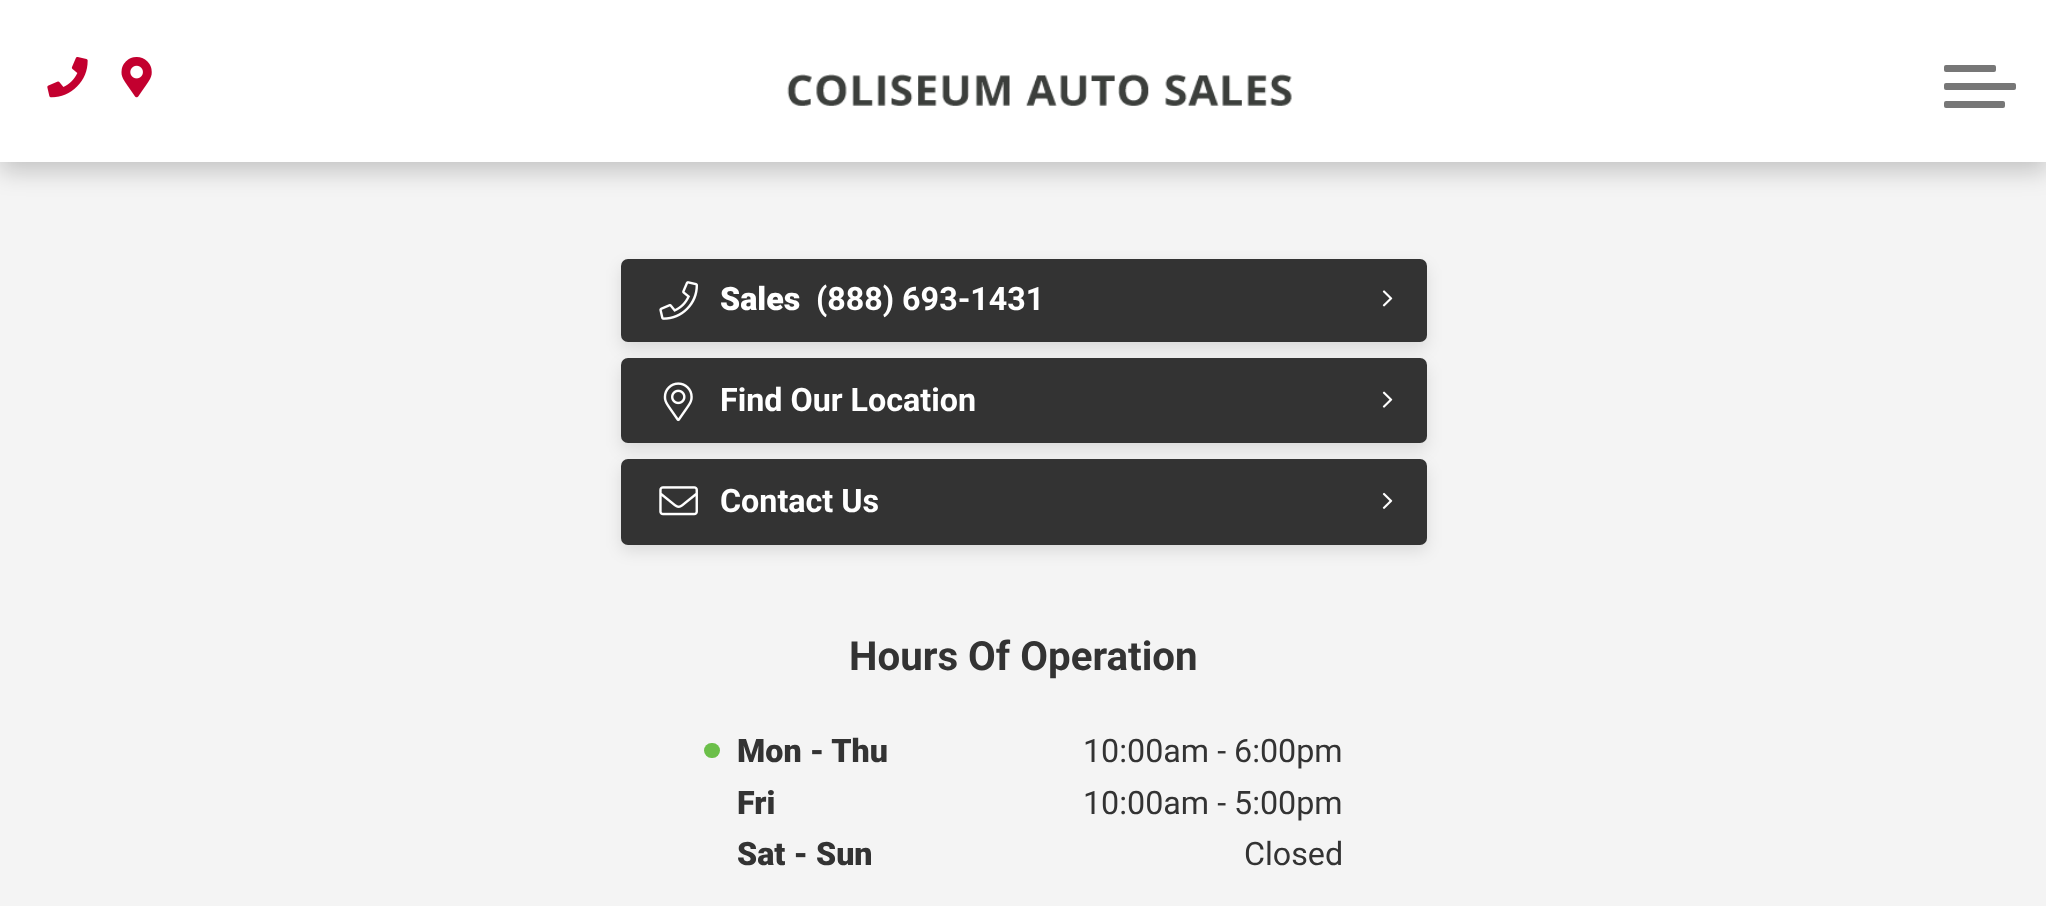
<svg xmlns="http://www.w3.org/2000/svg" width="2046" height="906">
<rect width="100%" height="100%" fill="#f4f4f4"/>
<rect y="9" width="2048" height="162" fill="#00000033" filter="blur(12px)"/>
<rect width="2046" height="162" fill="#fff"/>
<image x="47" y="57" width="41" height="41" href="media/1.png"/>
<image x="121" y="57" width="31" height="41" href="media/2.png"/>
<image x="787" y="74" width="505" height="32" href="media/3.png"/>
<rect x="1944" y="83" width="72" height="7" rx="2" fill="#777"/>
<rect x="1944" y="65" width="52" height="7" rx="2" fill="#777"/>
<rect x="1944" y="101" width="61" height="7" rx="2" fill="#777"/>
<rect x="621" y="266" width="806" height="83" rx="7" fill="#0000001a" filter="blur(8px)"/>
<rect x="621" y="259" width="806" height="83" rx="7" fill="#333"/>
<image x="659" y="281" width="39" height="39" href="media/4.png"/>
<text x="720" y="310" style="font-family:Roboto;font-size:32.25px;font-weight:900;fill:#fff">Sales</text>
<text x="816" y="310" style="font-family:Roboto;font-size:32.25px;font-weight:bold;fill:#fff">(888) 693-1431</text>
<image x="1382" y="290" width="11" height="17" href="media/5.png"/>
<rect x="621" y="365" width="806" height="85" rx="7" fill="#0000001a" filter="blur(8px)"/>
<rect x="621" y="358" width="806" height="85" rx="7" fill="#333"/>
<image x="663" y="382" width="30" height="40" href="media/6.png"/>
<text x="720" y="411" style="font-family:Roboto;font-size:32.25px;font-weight:bold;fill:#fff">Find Our Location</text>
<image x="1382" y="391" width="11" height="17" href="media/7.png"/>
<rect x="621" y="466" width="806" height="85" rx="7" fill="#0000001a" filter="blur(8px)"/>
<rect x="621" y="459" width="806" height="86" rx="7" fill="#333"/>
<image x="659" y="486" width="39" height="30" href="media/8.png"/>
<text x="720" y="512" style="font-family:Roboto;font-size:32.25px;font-weight:bold;fill:#fff">Contact Us</text>
<image x="1382" y="492" width="11" height="17" href="media/9.png"/>
<text x="849" y="670" style="font-family:Roboto;font-size:40.25px;font-weight:bold;fill:#333">Hours Of Operation</text>
<rect x="704" y="743" width="16" height="15" rx="7.5" fill="#6bbf49"/>
<text x="737" y="762" style="font-family:Roboto;font-size:32.25px;font-weight:900;fill:#333">Mon - Thu</text>
<text x="1083" y="762" style="font-family:Roboto;font-size:32.25px;fill:#333">10:00am - 6:00pm</text>
<text x="737" y="814" style="font-family:Roboto;font-size:32.25px;font-weight:900;fill:#333">Fri</text>
<text x="1083" y="814" style="font-family:Roboto;font-size:32.25px;fill:#333">10:00am - 5:00pm</text>
<text x="737" y="865" style="font-family:Roboto;font-size:32.25px;font-weight:900;fill:#333">Sat - Sun</text>
<text x="1244" y="865" style="font-family:Roboto;font-size:32.25px;fill:#333">Closed</text>
</svg>
